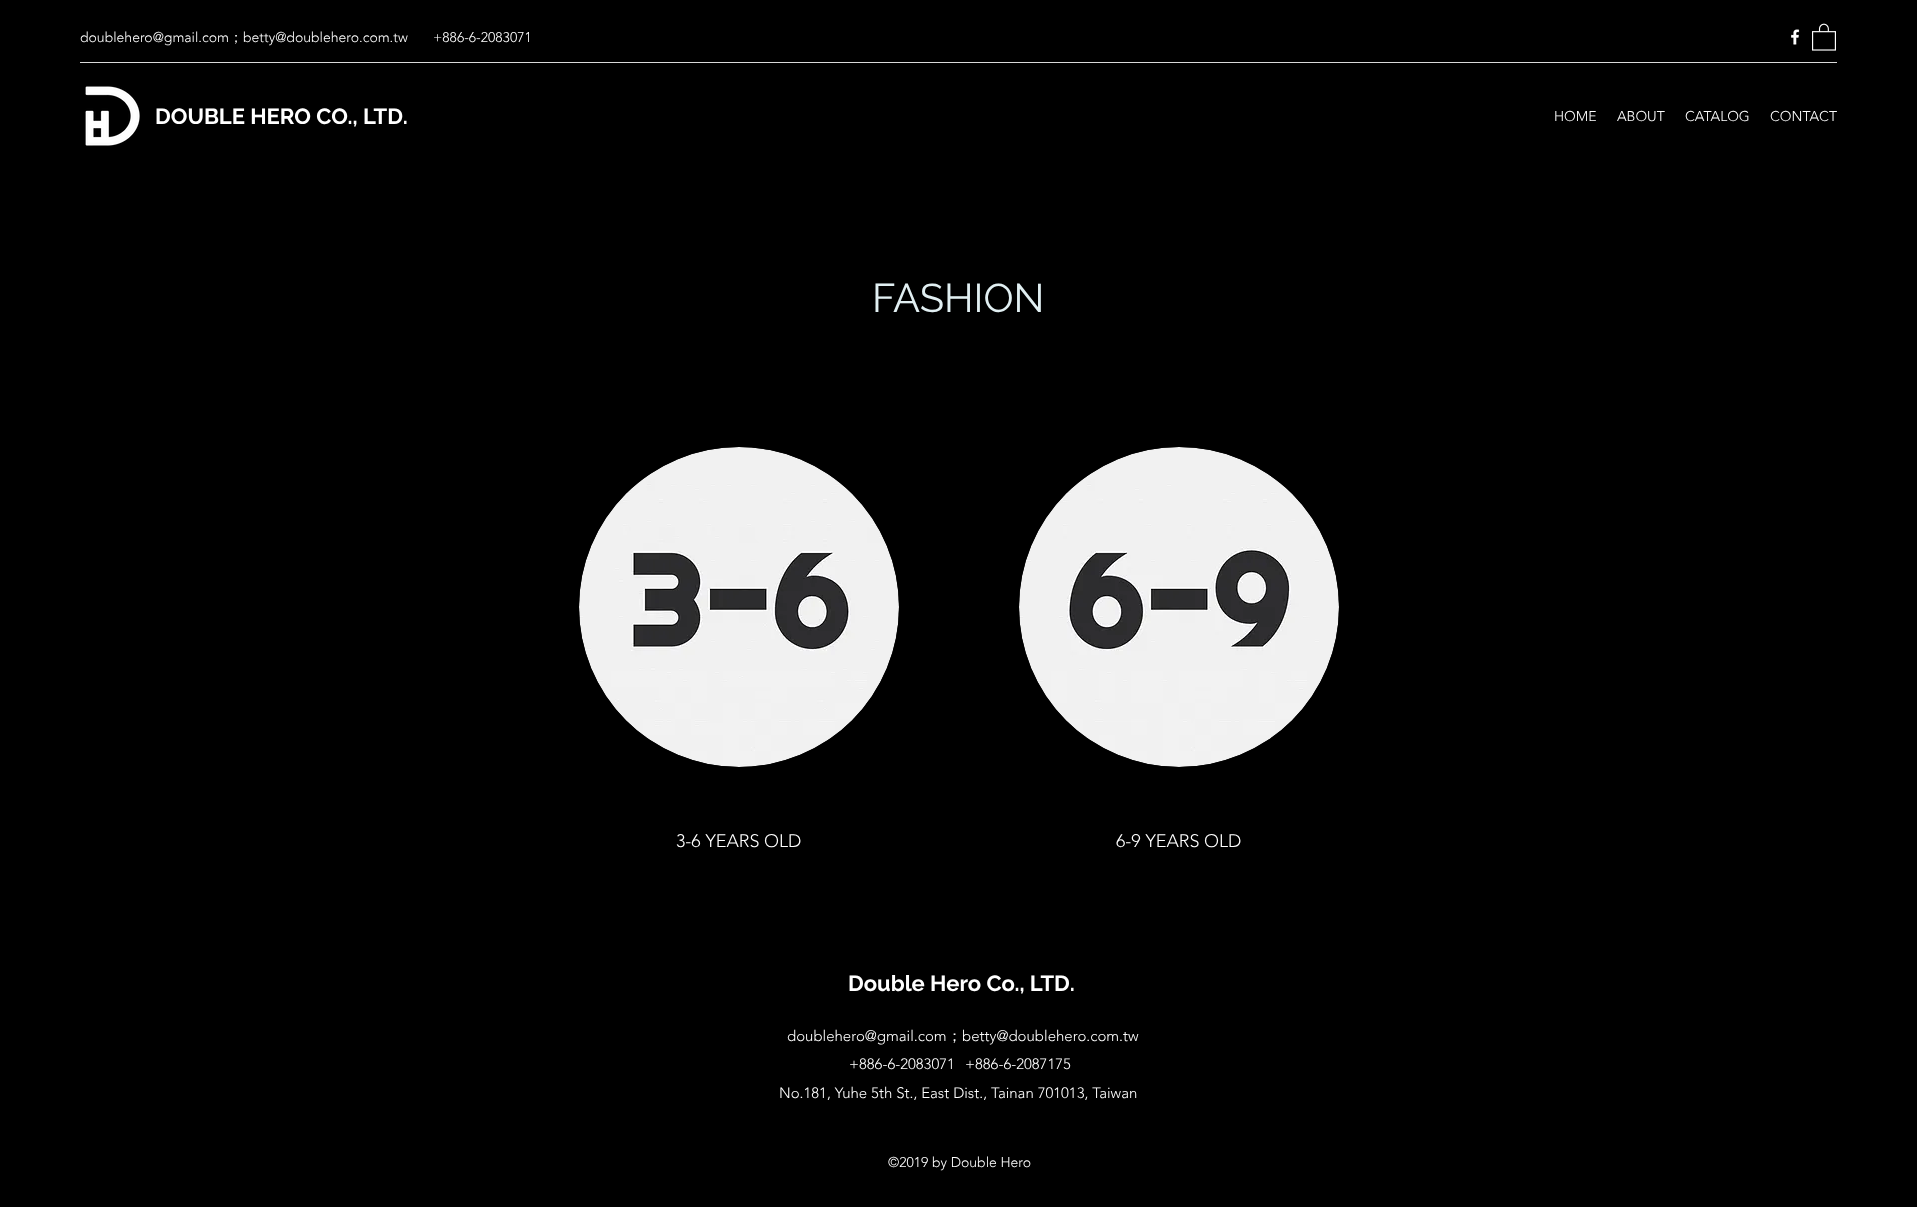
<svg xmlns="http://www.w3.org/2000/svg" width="1917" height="1207">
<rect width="100%" height="100%" fill="#000"/>
<text x="80" y="42" style="font-family:'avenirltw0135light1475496';font-size:14px;font-weight:300;fill:#fff">doublehero@gmail.com</text>
<text x="229" y="42" style="font-family:WenQuanYi Zen Hei;font-size:14px;font-weight:500;fill:#fff">；</text>
<text x="243" y="42" style="font-family:'avenirltw0135light1475496';font-size:14px;font-weight:300;fill:#fff">betty@doublehero.com.tw</text>
<text x="433" y="42" style="font-family:'avenirltw0135light1475496';font-size:14px;font-weight:300;fill:#fff">+886-6-2083071</text>
<image x="1791" y="29" width="9" height="16" href="media/1.png"/>
<image x="1812" y="23" width="24" height="28" href="media/2.png"/>
<rect x="80" y="62" width="1757" height="1" fill="#d9d9d9"/>
<image x="85" y="86" width="55" height="60" href="media/3.png"/>
<text x="155" y="124" style="font-family:Raleway;font-size:22px;font-weight:bold;fill:#fff">DOUBLE HERO CO., LTD.</text>
<text x="1554" y="121" style="font-family:'avenirltw0135light1475496';font-size:14px;font-weight:300;fill:#fff">HOME</text>
<text x="1617" y="121" style="font-family:'avenirltw0135light1475496';font-size:14px;font-weight:300;fill:#fff">ABOUT</text>
<text x="1685" y="121" style="font-family:'avenirltw0135light1475496';font-size:14px;font-weight:300;fill:#fff">CATALOG</text>
<text x="1770" y="121" style="font-family:'avenirltw0135light1475496';font-size:14px;font-weight:300;fill:#fff">CONTACT</text>
<text x="872" y="312" style="font-family:Raleway;font-size:40px;fill:#e1eff2">FASHION</text>
<image x="579" y="447" width="320" height="320" href="media/4.png"/>
<text x="676" y="847" style="font-family:'avenirltw0135light1475496';font-size:18px;font-weight:300;fill:#fff">3-6 YEARS OLD</text>
<image x="1019" y="447" width="320" height="320" href="media/5.png"/>
<text x="1116" y="847" style="font-family:'avenirltw0135light1475496';font-size:18px;font-weight:300;fill:#fff">6-9 YEARS OLD</text>
<text x="848" y="991" style="font-family:Raleway;font-size:22px;font-weight:bold;fill:#fff">Double Hero Co., LTD.</text>
<text x="787" y="1041" style="font-family:'avenirltw0135light1475496';font-size:15px;font-weight:300;fill:#fff">doublehero@gmail.com</text>
<text x="947" y="1041" style="font-family:WenQuanYi Zen Hei;font-size:15px;font-weight:500;fill:#fff">；</text>
<text x="962" y="1041" style="font-family:'avenirltw0135light1475496';font-size:15px;font-weight:300;fill:#fff">betty@doublehero.com.tw</text>
<text x="849" y="1069" style="font-family:'avenirltw0135light1475496';font-size:15px;font-weight:300;fill:#fff">+886-6-2083071</text>
<text x="965" y="1069" style="font-family:'avenirltw0135light1475496';font-size:15px;font-weight:300;fill:#fff">+886-6-2087175</text>
<text x="779" y="1098" style="font-family:'avenirltw0135light1475496';font-size:15px;font-weight:300;fill:#fff">No.181, Yuhe 5th St., East Dist., Tainan 701013, Taiwan</text>
<text x="888" y="1167" style="font-family:'avenirltw0135light1475496';font-size:14px;font-weight:300;fill:#fff">©2019 by Double Hero</text>
</svg>
